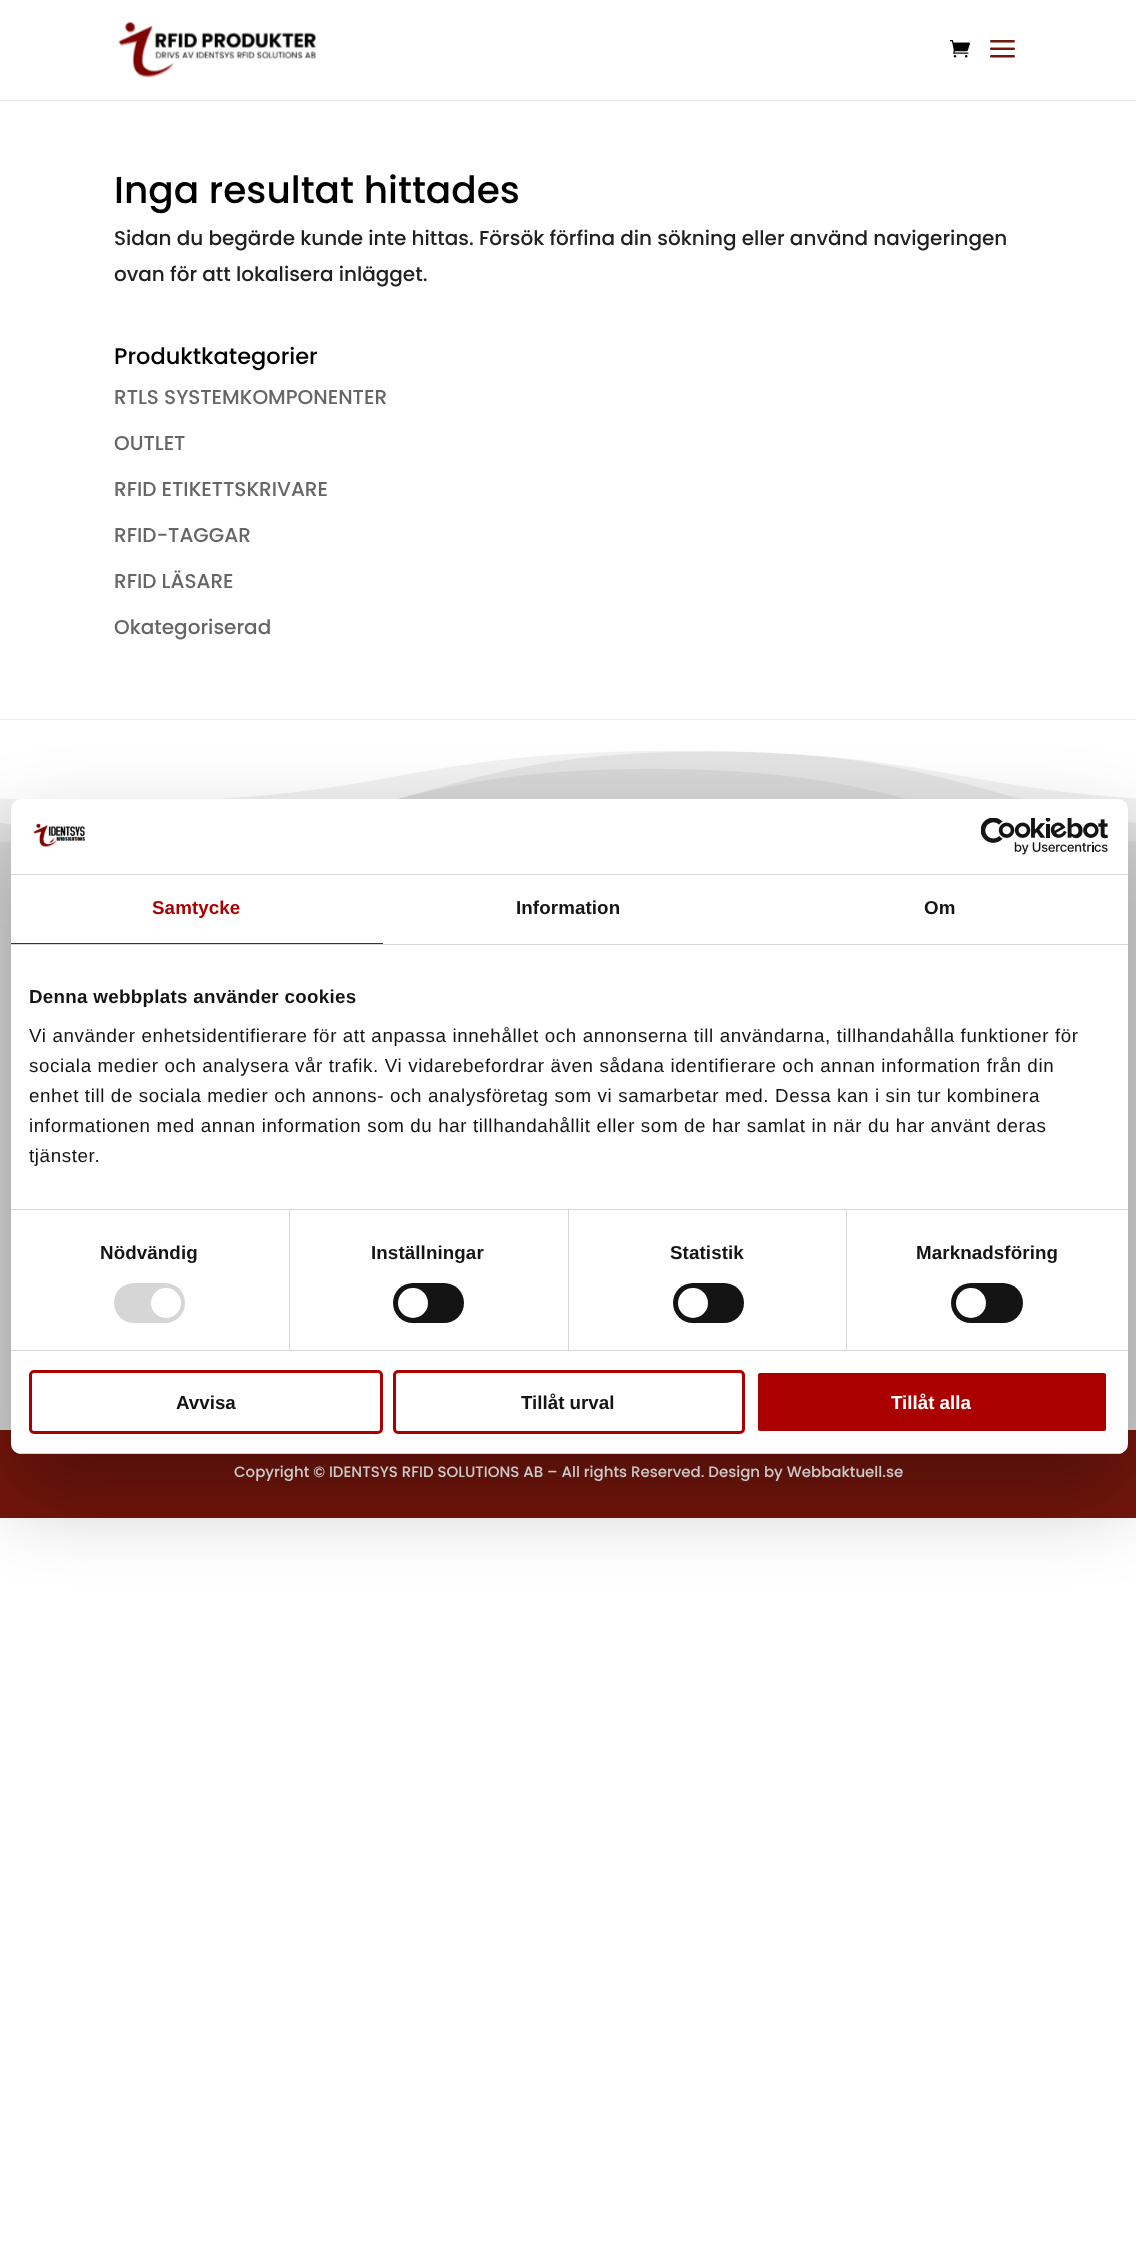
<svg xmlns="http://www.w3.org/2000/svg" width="1136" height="2251">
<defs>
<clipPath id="clip1"><rect x="11" y="799" width="1117" height="655" rx="10"/></clipPath>
</defs>
<rect width="100%" height="100%" fill="#fff"/>
<rect y="100" width="1136" height="1" fill="#e6e6e6"/>
<image x="118" y="22" width="198" height="56" href="media/1.png"/>
<image x="950" y="40" width="20" height="18" href="media/2.png"/>
<image x="990" y="40" width="25" height="18" href="media/3.png"/>
<text x="114" y="203" style="font-family:Poppins;font-size:37.5px;font-weight:500;fill:#000">Inga resultat hittades</text>
<text x="114" y="245" style="font-family:Poppins;font-size:20px;font-weight:500;fill:#212121">Sidan du begärde kunde inte hittas. Försök förfina din sökning eller använd navigeringen</text>
<text x="114" y="281" style="font-family:Poppins;font-size:20px;font-weight:500;fill:#212121">ovan för att lokalisera inlägget.</text>
<text x="114" y="364" style="font-family:Poppins;font-size:22.5px;font-weight:500;fill:#000">Produktkategorier</text>
<text x="114" y="404" style="font-family:Poppins;font-size:20px;font-weight:500;fill:#666">RTLS SYSTEMKOMPONENTER</text>
<text x="114" y="450" style="font-family:Poppins;font-size:20px;font-weight:500;fill:#666">OUTLET</text>
<text x="114" y="496" style="font-family:Poppins;font-size:20px;font-weight:500;fill:#666">RFID ETIKETTSKRIVARE</text>
<text x="114" y="542" style="font-family:Poppins;font-size:20px;font-weight:500;fill:#666">RFID-TAGGAR</text>
<text x="114" y="588" style="font-family:Poppins;font-size:20px;font-weight:500;fill:#666">RFID LÄSARE</text>
<text x="114" y="634" style="font-family:Poppins;font-size:20px;font-weight:500;fill:#666">Okategoriserad</text>
<rect y="719" width="1136" height="711" fill="#d6d6d6"/>
<image x="0" y="719" width="1136" height="124" href="media/4.png"/>
<rect y="1430" width="1136" height="88" fill="#74160c"/>
<text x="234" y="1477" style="font-family:Poppins;font-size:15px;font-weight:500;fill:#fff">Copyright © IDENTSYS RFID SOLUTIONS AB – All rights Reserved. Design by Webbaktuell.se</text>
<rect x="11" y="839" width="1117" height="655" rx="10" fill="#0000004d" filter="blur(42.5px)"/>
<rect x="11" y="799" width="1117" height="655" rx="10" fill="#fff"/>
<rect x="11" y="874" width="1117" height="1" fill="#d6d6d6"/>
<image x="33" y="823" width="53" height="24" href="media/5.png"/>
<image x="981" y="818" width="127" height="37" href="media/6.png"/>
<rect x="11" y="944" width="1117" height="1" fill="#d6d6d6"/>
<rect x="11" y="943" width="372" height="1" fill="#ab0000"/>
<text x="152" y="914" style="font-family:Liberation Sans;font-size:18.75px;font-weight:bold;letter-spacing:0.1px;fill:#ab0000">Samtycke</text>
<text x="516" y="914" style="font-family:Liberation Sans;font-size:18.75px;font-weight:bold;letter-spacing:0.1px;fill:#141414">Information</text>
<text x="924" y="914" style="font-family:Liberation Sans;font-size:18.75px;font-weight:bold;letter-spacing:0.1px;fill:#141414">Om</text>
<rect x="11" y="1209" width="1117" height="1" fill="#d6d6d6"/>
<text x="29" y="1003" style="font-family:Liberation Sans;font-size:18.75px;font-weight:bold;letter-spacing:0.3px;fill:#141414">Denna webbplats använder cookies</text>
<text x="29" y="1042" style="font-family:Liberation Sans;font-size:18.75px;letter-spacing:0.62px;fill:#141414">Vi använder enhetsidentifierare för att anpassa innehållet och annonserna till användarna, tillhandahålla funktioner för</text>
<text x="29" y="1072" style="font-family:Liberation Sans;font-size:18.75px;letter-spacing:0.62px;fill:#141414">sociala medier och analysera vår trafik. Vi vidarebefordrar även sådana identifierare och annan information från din</text>
<text x="29" y="1102" style="font-family:Liberation Sans;font-size:18.75px;letter-spacing:0.62px;fill:#141414">enhet till de sociala medier och annons- och analysföretag som vi samarbetar med. Dessa kan i sin tur kombinera</text>
<text x="29" y="1132" style="font-family:Liberation Sans;font-size:18.75px;letter-spacing:0.62px;fill:#141414">informationen med annan information som du har tillhandahållit eller som de har samlat in när du har använt deras</text>
<text x="29" y="1162" style="font-family:Liberation Sans;font-size:18.75px;letter-spacing:0.62px;fill:#141414">tjänster.</text>
<rect x="11" y="1350" width="1117" height="1" fill="#d6d6d6"/>
<rect x="289" y="1210" width="1" height="140" fill="#d6d6d6"/>
<text x="100" y="1259" style="font-family:Liberation Sans;font-size:18.75px;font-weight:bold;letter-spacing:0.1px;fill:#141414">Nödvändig</text>
<rect x="114" y="1283" width="71" height="40" rx="20" fill="#d6d6d6"/>
<circle cx="166" cy="1303" r="15" fill="#fff"/>
<rect x="568" y="1210" width="1" height="140" fill="#d6d6d6"/>
<text x="371" y="1259" style="font-family:Liberation Sans;font-size:18.75px;font-weight:bold;letter-spacing:0.1px;fill:#141414">Inställningar</text>
<rect x="393" y="1283" width="71" height="40" rx="20" fill="#141414"/>
<circle cx="413" cy="1303" r="15" fill="#fff"/>
<rect x="846" y="1210" width="1" height="140" fill="#d6d6d6"/>
<text x="670" y="1259" style="font-family:Liberation Sans;font-size:18.75px;font-weight:bold;letter-spacing:0.1px;fill:#141414">Statistik</text>
<rect x="673" y="1283" width="71" height="40" rx="20" fill="#141414"/>
<circle cx="693" cy="1303" r="15" fill="#fff"/>
<text x="916" y="1259" style="font-family:Liberation Sans;font-size:18.75px;font-weight:bold;letter-spacing:0.1px;fill:#141414">Marknadsföring</text>
<rect x="951" y="1283" width="72" height="40" rx="20" fill="#141414"/>
<circle cx="971" cy="1303" r="15" fill="#fff"/>
<g clip-path="url(#clip1)">
<rect x="11" y="1453" width="1117" height="1" fill="#d6d6d6"/>
</g>
<rect x="30.5" y="1371.5" width="351" height="61" rx="3.5" fill="none" stroke="#ab0000" stroke-width="3"/>
<text x="176" y="1409" style="font-family:Liberation Sans;font-size:18.75px;font-weight:bold;fill:#141414">Avvisa</text>
<rect x="394.5" y="1371.5" width="349" height="61" rx="3.5" fill="none" stroke="#ab0000" stroke-width="3"/>
<text x="521" y="1409" style="font-family:Liberation Sans;font-size:18.75px;font-weight:bold;fill:#141414">Tillåt urval</text>
<rect x="756.5" y="1371.5" width="351" height="61" rx="3.5" fill="#ab0000" stroke="#fff" stroke-width="3"/>
<text x="891" y="1409" style="font-family:Liberation Sans;font-size:18.75px;font-weight:bold;fill:#fff">Tillåt alla</text>
</svg>
